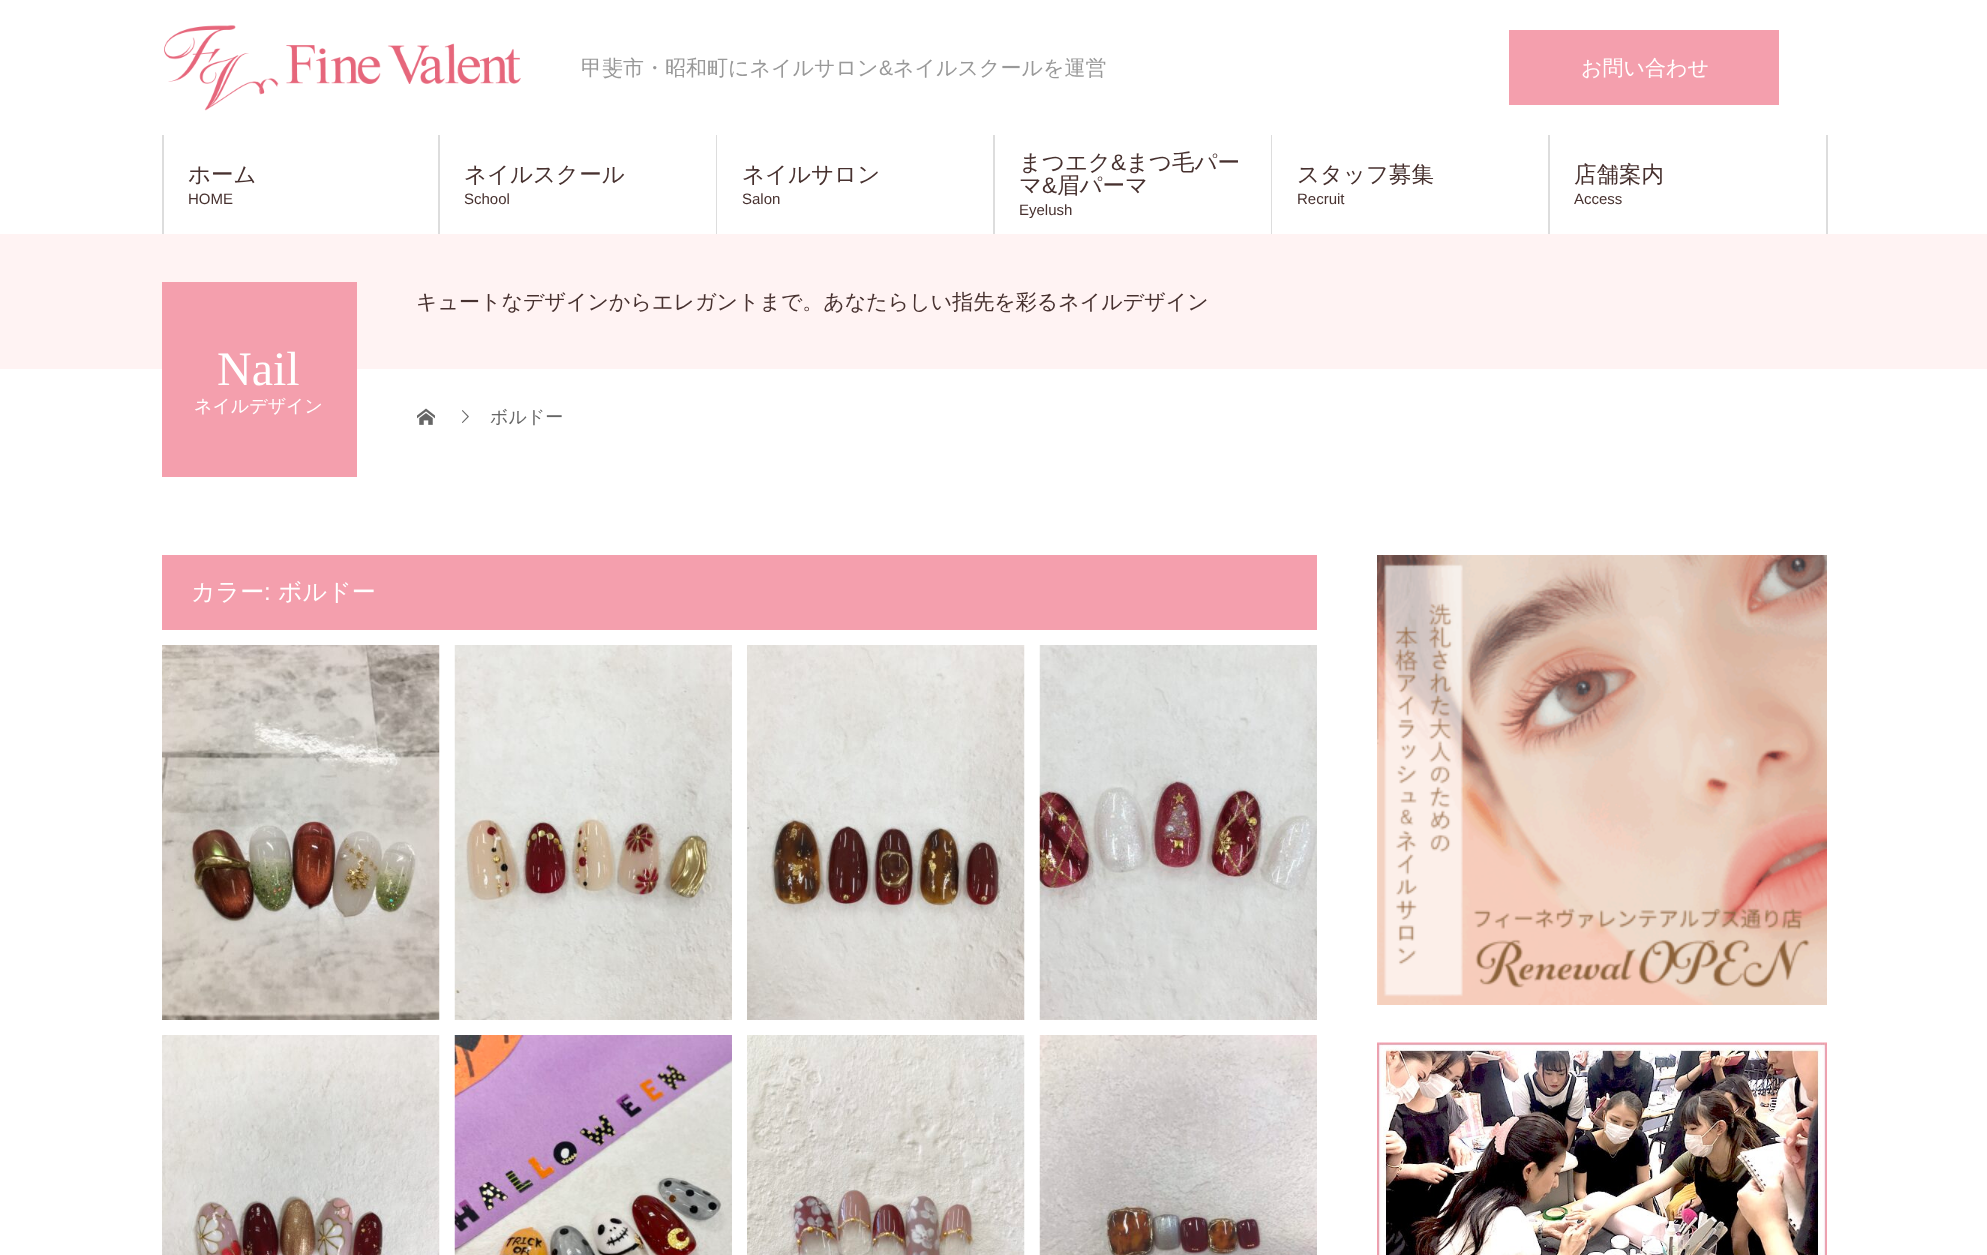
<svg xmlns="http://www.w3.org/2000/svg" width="1987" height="1255">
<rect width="100%" height="100%" fill="#fff"/>
<image x="164" y="25" width="357" height="86" href="media/1.png"/>
<text x="581" y="75" style="font-family:WenQuanYi Zen Hei;font-size:21px;font-weight:500;fill:#999">甲斐市・昭和町にネイルサロン</text>
<text x="879" y="75" style="font-family:Liberation Sans;font-size:21px;fill:#999">&amp;</text>
<text x="893" y="75" style="font-family:WenQuanYi Zen Hei;font-size:21px;font-weight:500;fill:#999">ネイルスクールを運営</text>
<rect x="1509" y="30" width="270" height="75" fill="#f49fad"/>
<text x="1581" y="75" style="font-family:WenQuanYi Zen Hei;font-size:21px;font-weight:500;fill:#fff">お問い合わせ</text>
<rect x="438" y="135" width="2" height="99" fill="#ddd"/>
<rect x="162" y="135" width="2" height="99" fill="#ddd"/>
<text x="188" y="182" style="font-family:WenQuanYi Zen Hei;font-size:22.5px;font-weight:500;fill:#47312f">ホーム</text>
<text x="188" y="204" style="font-family:Liberation Sans;font-size:15px;fill:#47312f">HOME</text>
<rect x="716" y="135" width="1" height="99" fill="#ddd"/>
<text x="464" y="182" style="font-family:WenQuanYi Zen Hei;font-size:22.5px;font-weight:500;fill:#47312f">ネイルスクール</text>
<text x="464" y="204" style="font-family:Liberation Sans;font-size:15px;fill:#47312f">School</text>
<rect x="993" y="135" width="2" height="99" fill="#ddd"/>
<text x="742" y="182" style="font-family:WenQuanYi Zen Hei;font-size:22.5px;font-weight:500;fill:#47312f">ネイルサロン</text>
<text x="742" y="204" style="font-family:Liberation Sans;font-size:15px;fill:#47312f">Salon</text>
<rect x="1271" y="135" width="1" height="99" fill="#ddd"/>
<text x="1019" y="170" style="font-family:WenQuanYi Zen Hei;font-size:22.5px;font-weight:500;fill:#47312f">まつエク</text>
<text x="1111" y="170" style="font-family:Liberation Sans;font-size:22.5px;fill:#47312f">&amp;</text>
<text x="1126" y="170" style="font-family:WenQuanYi Zen Hei;font-size:22.5px;font-weight:500;fill:#47312f">まつ毛パー</text>
<text x="1019" y="193" style="font-family:WenQuanYi Zen Hei;font-size:22.5px;font-weight:500;fill:#47312f">マ</text>
<text x="1042" y="193" style="font-family:Liberation Sans;font-size:22.5px;fill:#47312f">&amp;</text>
<text x="1057" y="193" style="font-family:WenQuanYi Zen Hei;font-size:22.5px;font-weight:500;fill:#47312f">眉パーマ</text>
<text x="1019" y="215" style="font-family:Liberation Sans;font-size:15px;fill:#47312f">Eyelush</text>
<rect x="1548" y="135" width="2" height="99" fill="#ddd"/>
<text x="1297" y="182" style="font-family:WenQuanYi Zen Hei;font-size:22.5px;font-weight:500;fill:#47312f">スタッフ募集</text>
<text x="1297" y="204" style="font-family:Liberation Sans;font-size:15px;fill:#47312f">Recruit</text>
<rect x="1826" y="135" width="2" height="99" fill="#ddd"/>
<text x="1574" y="182" style="font-family:WenQuanYi Zen Hei;font-size:22.5px;font-weight:500;fill:#47312f">店舗案内</text>
<text x="1574" y="204" style="font-family:Liberation Sans;font-size:15px;fill:#47312f">Access</text>
<rect y="234" width="1987" height="135" fill="#fff3f3"/>
<text x="416" y="309" style="font-family:WenQuanYi Zen Hei;font-size:21px;font-weight:500;fill:#47312f">キュートなデザインからエレガントまで。あなたらしい指先を彩るネイルデザイン</text>
<rect x="162" y="282" width="195" height="195" fill="#f49fad"/>
<text x="217" y="385" style="font-family:Liberation Serif;font-size:48px;fill:#fff">Nail</text>
<text x="194" y="412" style="font-family:WenQuanYi Zen Hei;font-size:18px;font-weight:500;fill:#fff">ネイルデザイン</text>
<image x="417" y="408" width="18" height="17" href="media/2.png"/>
<image x="462" y="410" width="7" height="13" href="media/3.png"/>
<text x="490" y="423" style="font-family:WenQuanYi Zen Hei;font-size:18px;font-weight:500;fill:#666">ボルドー</text>
<rect x="162" y="555" width="1155" height="75" fill="#f49fad"/>
<text x="191" y="600" style="font-family:WenQuanYi Zen Hei;font-size:24px;font-weight:500;fill:#fff">カラー</text>
<text x="264" y="600" style="font-family:Liberation Sans;font-size:24px;fill:#fff">:</text>
<text x="278" y="600" style="font-family:WenQuanYi Zen Hei;font-size:24px;font-weight:500;fill:#fff">ボルドー</text>
<image x="162" y="645" width="278" height="375" href="media/4.png"/>
<image x="454" y="645" width="278" height="375" href="media/5.png"/>
<image x="747" y="645" width="278" height="375" href="media/6.png"/>
<image x="1039" y="645" width="278" height="375" href="media/7.png"/>
<image x="162" y="1035" width="278" height="220" href="media/8.png"/>
<image x="454" y="1035" width="278" height="220" href="media/9.png"/>
<image x="747" y="1035" width="278" height="220" href="media/10.png"/>
<image x="1039" y="1035" width="278" height="220" href="media/11.png"/>
<image x="1377" y="555" width="450" height="450" href="media/12.png"/>
<image x="1377" y="1042" width="450" height="213" href="media/13.png"/>
</svg>
